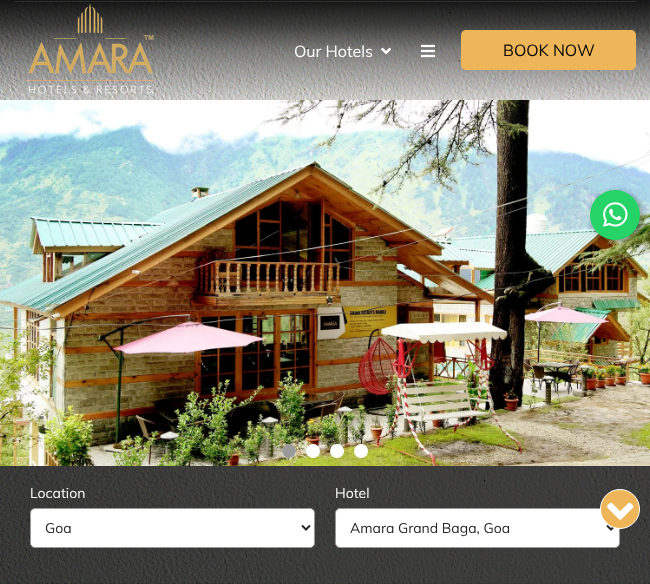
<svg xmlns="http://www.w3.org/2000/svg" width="650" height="584">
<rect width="100%" height="100%" fill="#fff"/>
<image x="0" y="0" width="650" height="584" href="media/1.png"/>
<image x="25" y="4" width="130" height="90" href="media/2.png"/>
<rect x="14" y="1" width="622" height="1" fill="#ffffff1a"/>
<text x="294" y="57" style="font-family:Muli;font-size:16px;fill:#fff">Our Hotels</text>
<image x="381" y="47" width="10" height="8" href="media/3.png"/>
<image x="421" y="44" width="14" height="14" href="media/4.png"/>
<rect x="461" y="30" width="175" height="40" rx="5" fill="#efb659"/>
<text x="503" y="56" style="font-family:Muli;font-size:16px;fill:#000">BOOK NOW</text>
<image x="0" y="100" width="650" height="366" href="media/6.png"/>
<rect x="592" y="192" width="50" height="50" rx="25" fill="#00000066" filter="blur(3px)"/>
<circle cx="615" cy="215" r="25" fill="#25d366"/>
<image x="603" y="202" width="25" height="25" href="media/5.png"/>
<circle cx="289" cy="451" r="7" fill="#fff"/>
<image x="282" y="444" width="14" height="14" href="media/7.png"/>
<circle cx="313" cy="451" r="7" fill="#fff"/>
<image x="306" y="444" width="14" height="14" href="media/8.png"/>
<circle cx="337" cy="451" r="7" fill="#fff"/>
<image x="330" y="444" width="14" height="14" href="media/9.png"/>
<circle cx="361" cy="451" r="7" fill="#fff"/>
<image x="354" y="444" width="14" height="14" href="media/10.png"/>
<rect y="466" width="650" height="118" fill="#000000b3"/>
<text x="30" y="498" style="font-family:Muli;font-size:14px;fill:#fff">Location</text>
<rect x="30.5" y="508.5" width="284" height="39" rx="4.5" fill="#fff" stroke="#999"/>
<path d="M302 525.5l4 4l4-4" fill="none" stroke="#272727" stroke-width="2"/>
<text x="45" y="533" style="font-family:Muli;font-size:14px;fill:#272727">Goa</text>
<text x="335" y="498" style="font-family:Muli;font-size:14px;fill:#fff">Hotel</text>
<rect x="335.5" y="508.5" width="284" height="39" rx="4.5" fill="#fff" stroke="#999"/>
<path d="M607 525.5l4 4l4-4" fill="none" stroke="#272727" stroke-width="2"/>
<text x="350" y="533" style="font-family:Muli;font-size:14px;fill:#272727">Amara Grand Baga, Goa</text>
<circle cx="620" cy="509" r="19.5" fill="#efb659" stroke="#fff"/>
<image x="607" y="502" width="27" height="18" href="media/11.png"/>
</svg>
